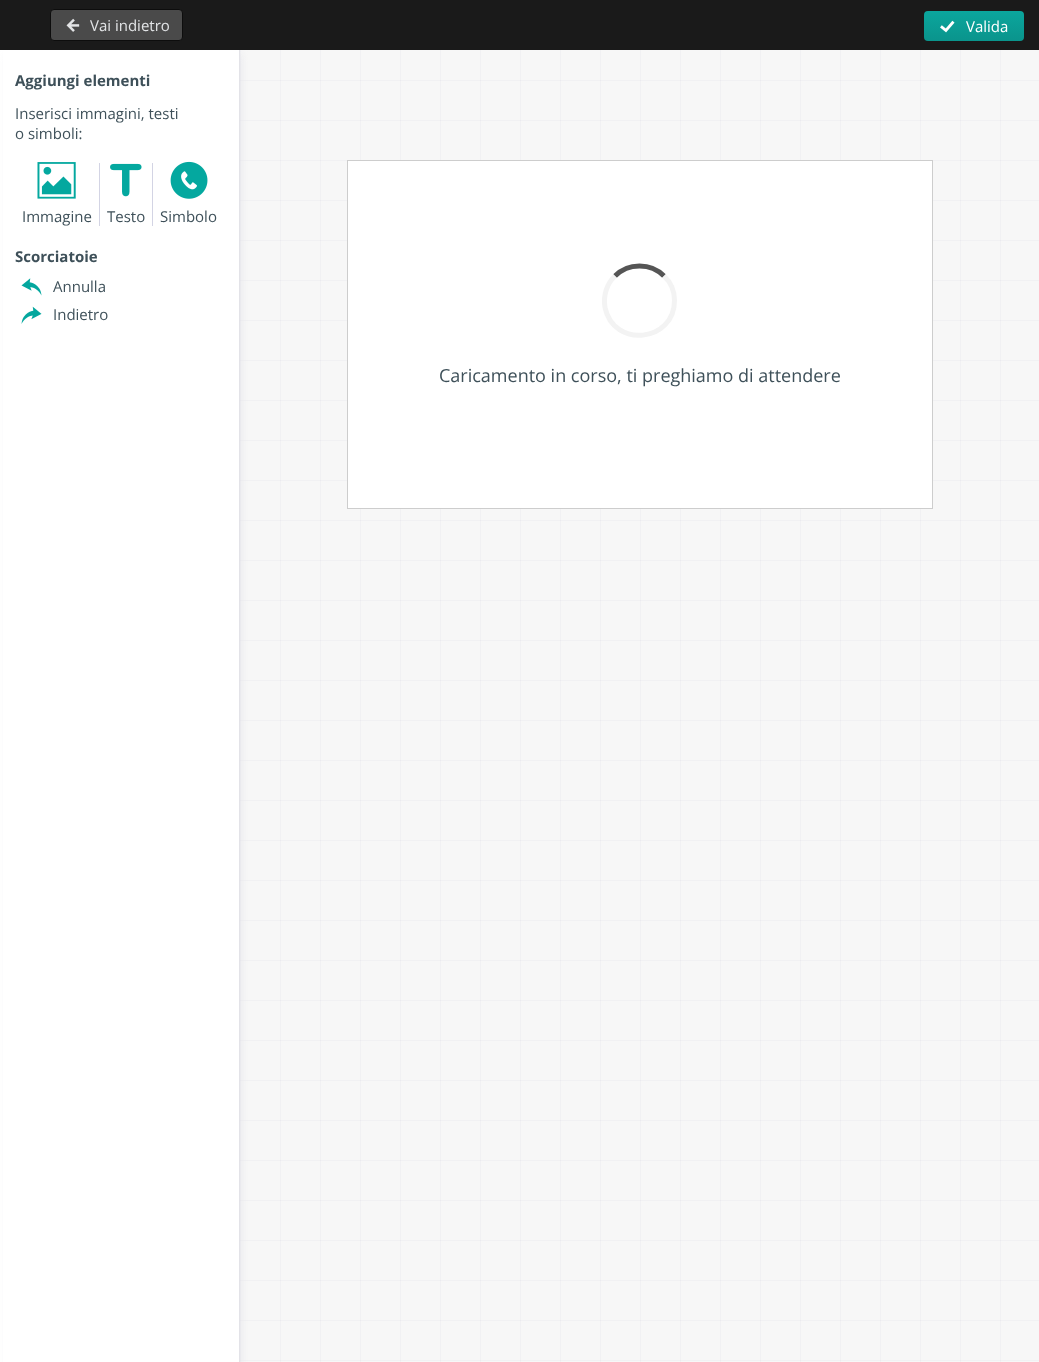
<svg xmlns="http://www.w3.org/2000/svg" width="1039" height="1362">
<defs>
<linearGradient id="g1" gradientUnits="userSpaceOnUse" x1="974" y1="11" x2="974" y2="41"><stop offset="0" stop-color="#0ba69d"/><stop offset="1" stop-color="#0a948c"/></linearGradient>
</defs>
<rect width="100%" height="100%" fill="#fff"/>
<image x="240" y="50" width="799" height="1312" href="media/1.png"/>
<rect x="8" y="54" width="232" height="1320" fill="#e3e3e8" filter="blur(4px)"/>
<rect width="1039" height="50" fill="#1a1a1a"/>
<rect x="50.5" y="9.5" width="132" height="31" rx="3.5" fill="#4a4a4a" stroke="#0d0d0d"/>
<image x="66" y="18" width="14" height="14" href="media/2.png"/>
<text x="90" y="31" style="font-family:Open Sans;font-size:15px;fill:#e2e4e6">Vai indietro</text>
<rect x="924" y="11" width="100" height="30" rx="4" fill="url(#g1)"/>
<image x="940" y="20" width="15" height="13" href="media/3.png"/>
<text x="966" y="32" style="font-family:Open Sans;font-size:15px;fill:#fff">Valida</text>
<rect x="3" y="50" width="236" height="1312" fill="#fff"/>
<rect x="239" y="50" width="1" height="1312" fill="#e3e3e8"/>
<text x="15" y="86" style="font-family:Open Sans;font-size:15px;font-weight:bold;fill:#3e5059">Aggiungi elementi</text>
<text x="15" y="119" style="font-family:Open Sans;font-size:15px;fill:#3e5059">Inserisci immagini, testi</text>
<text x="15" y="139" style="font-family:Open Sans;font-size:15px;fill:#3e5059">o simboli:</text>
<image x="37" y="162" width="39" height="37" href="media/4.png"/>
<text x="22" y="222" style="font-family:Open Sans;font-size:15px;fill:#3e5059">Immagine</text>
<rect x="152" y="163" width="1" height="63" fill="#d3d4e4"/>
<rect x="99" y="163" width="1" height="63" fill="#d3d4e4"/>
<image x="110" y="163" width="32" height="34" href="media/5.png"/>
<text x="107" y="222" style="font-family:Open Sans;font-size:15px;fill:#3e5059">Testo</text>
<image x="170" y="161" width="38" height="38" href="media/6.png"/>
<text x="160" y="222" style="font-family:Open Sans;font-size:15px;fill:#3e5059">Simbolo</text>
<text x="15" y="262" style="font-family:Open Sans;font-size:15px;font-weight:bold;fill:#3e5059">Scorciatoie</text>
<image x="21" y="278" width="21" height="18" href="media/7.png"/>
<text x="53" y="292" style="font-family:Open Sans;font-size:15px;fill:#3e5059">Annulla</text>
<image x="21" y="306" width="21" height="18" href="media/8.png"/>
<text x="53" y="320" style="font-family:Open Sans;font-size:15px;fill:#3e5059">Indietro</text>
<rect x="347.5" y="160.5" width="585" height="348" fill="#fff" stroke="#cdcdcd"/>
<path d="M615 276c13-13.5 36-13.5 49 0" fill="none" stroke="#555" stroke-width="5"/>
<path d="M664 276c7 6.5 10.5 15.5 10.5 24.5c0 42-61 48-69.5 7c-2-11.5 1.5-23.5 10-31.5" fill="none" stroke="#f3f3f3" stroke-width="5"/>
<text x="439" y="382" style="font-family:Open Sans;font-size:18px;fill:#3e5059">Caricamento in corso, ti preghiamo di attendere</text>
</svg>
